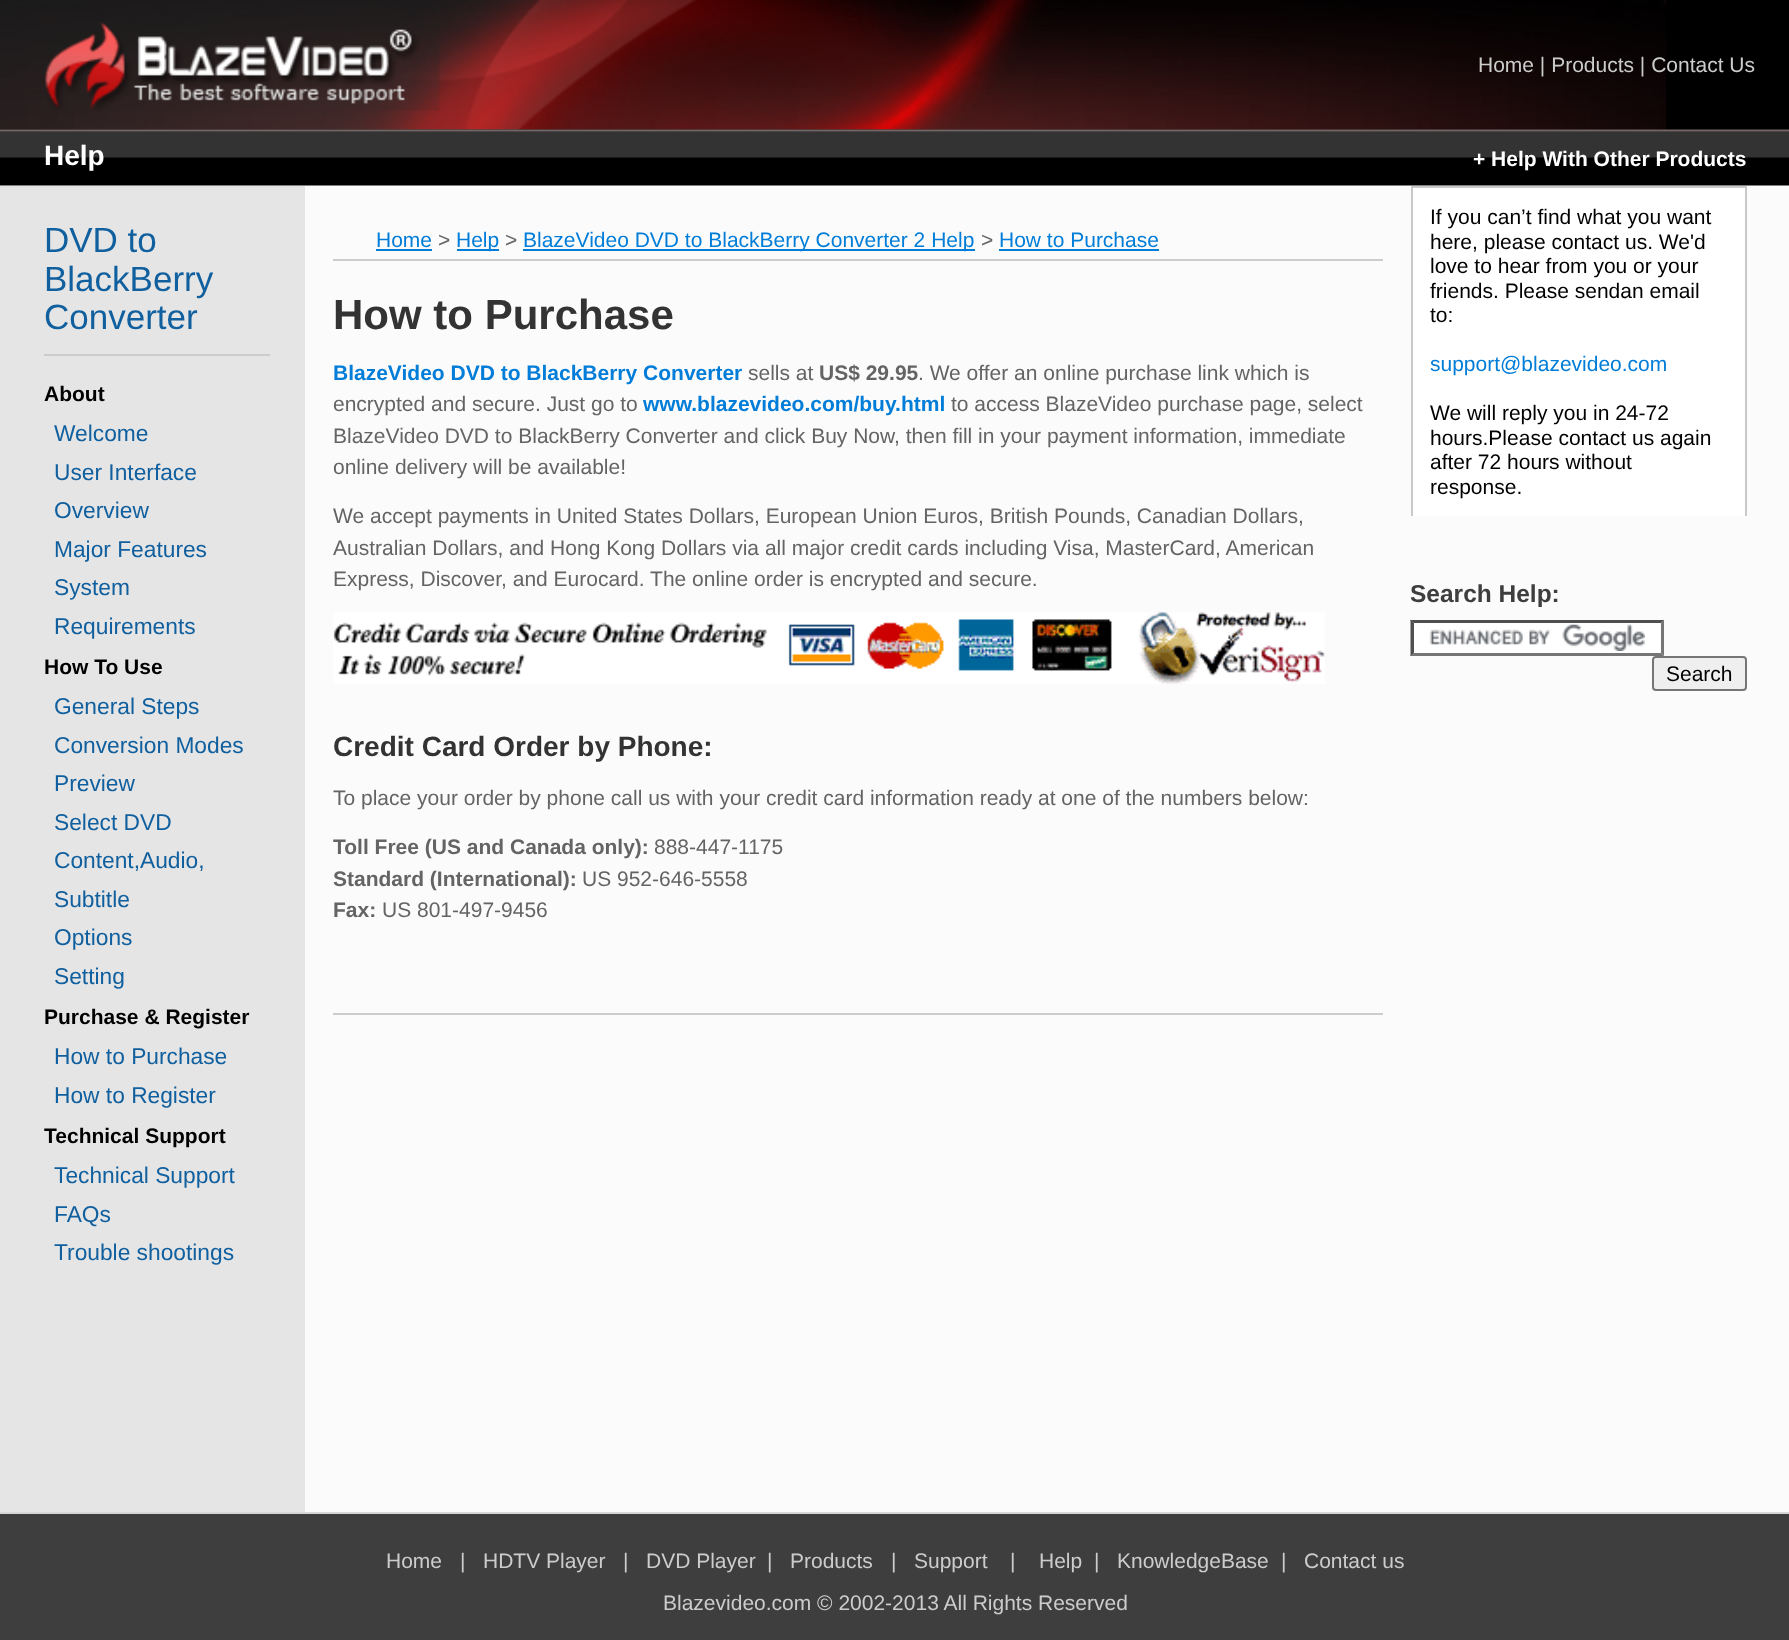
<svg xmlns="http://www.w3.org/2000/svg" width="1789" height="1640">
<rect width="100%" height="100%" fill="#fff"/>
<rect width="1789" height="130" fill="#000"/>
<image x="0" y="0" width="1666" height="130" href="media/1.png"/>
<image x="45" y="22" width="395" height="89" href="media/2.png"/>
<text x="1478" y="72" style="font-family:Liberation Sans;font-size:21px;fill:#ccc">Home | Products | Contact Us</text>
<image x="0" y="129" width="1789" height="57" href="media/3.png"/>
<text x="44" y="165" style="font-family:Liberation Sans;font-size:28px;font-weight:bold;fill:#fff">Help</text>
<text x="1473" y="166" style="font-family:Liberation Sans;font-size:21px;font-weight:bold;fill:#fff">+ Help With Other Products</text>
<rect x="305" y="186" width="1484" height="1326" fill="#fbfbfb"/>
<rect y="1512" width="1789" height="2" fill="#d6d6d6"/>
<rect y="186" width="305" height="1326" fill="#e5e5e5"/>
<rect x="44" y="354" width="226" height="2" fill="#ccc"/>
<text x="44" y="252" style="font-family:Liberation Sans;font-size:35px;fill:#105f9e">DVD to</text>
<text x="44" y="291" style="font-family:Liberation Sans;font-size:35px;fill:#105f9e">BlackBerry</text>
<text x="44" y="329" style="font-family:Liberation Sans;font-size:35px;fill:#105f9e">Converter</text>
<text x="44" y="401" style="font-family:Liberation Sans;font-size:21px;font-weight:bold;fill:#000">About</text>
<text x="54" y="441" style="font-family:Liberation Sans;font-size:22.75px;fill:#105f9e">Welcome</text>
<text x="54" y="480" style="font-family:Liberation Sans;font-size:22.75px;fill:#105f9e">User Interface</text>
<text x="54" y="518" style="font-family:Liberation Sans;font-size:22.75px;fill:#105f9e">Overview</text>
<text x="54" y="557" style="font-family:Liberation Sans;font-size:22.75px;fill:#105f9e">Major Features</text>
<text x="54" y="595" style="font-family:Liberation Sans;font-size:22.75px;fill:#105f9e">System</text>
<text x="54" y="634" style="font-family:Liberation Sans;font-size:22.75px;fill:#105f9e">Requirements</text>
<text x="44" y="674" style="font-family:Liberation Sans;font-size:21px;font-weight:bold;fill:#000">How To Use</text>
<text x="54" y="714" style="font-family:Liberation Sans;font-size:22.75px;fill:#105f9e">General Steps</text>
<text x="54" y="753" style="font-family:Liberation Sans;font-size:22.75px;fill:#105f9e">Conversion Modes</text>
<text x="54" y="791" style="font-family:Liberation Sans;font-size:22.75px;fill:#105f9e">Preview</text>
<text x="54" y="830" style="font-family:Liberation Sans;font-size:22.75px;fill:#105f9e">Select DVD</text>
<text x="54" y="868" style="font-family:Liberation Sans;font-size:22.75px;fill:#105f9e">Content,Audio,</text>
<text x="54" y="907" style="font-family:Liberation Sans;font-size:22.75px;fill:#105f9e">Subtitle</text>
<text x="54" y="945" style="font-family:Liberation Sans;font-size:22.75px;fill:#105f9e">Options</text>
<text x="54" y="984" style="font-family:Liberation Sans;font-size:22.75px;fill:#105f9e">Setting</text>
<text x="44" y="1024" style="font-family:Liberation Sans;font-size:21px;font-weight:bold;fill:#000">Purchase &amp; Register</text>
<text x="54" y="1064" style="font-family:Liberation Sans;font-size:22.75px;fill:#105f9e">How to Purchase</text>
<text x="54" y="1103" style="font-family:Liberation Sans;font-size:22.75px;fill:#105f9e">How to Register</text>
<text x="44" y="1143" style="font-family:Liberation Sans;font-size:21px;font-weight:bold;fill:#000">Technical Support</text>
<text x="54" y="1183" style="font-family:Liberation Sans;font-size:22.75px;fill:#105f9e">Technical Support</text>
<text x="54" y="1222" style="font-family:Liberation Sans;font-size:22.75px;fill:#105f9e">FAQs</text>
<text x="54" y="1260" style="font-family:Liberation Sans;font-size:22.75px;fill:#105f9e">Trouble shootings</text>
<rect x="333" y="259" width="1050" height="2" fill="#ccc"/>
<text x="376" y="247" style="font-family:Liberation Sans;font-size:21px;fill:#007dd8">Home</text>
<rect x="376" y="249" width="56" height="2" fill="#007dd8"/>
<text x="438" y="247" style="font-family:Liberation Sans;font-size:21px;fill:#646464">&gt;</text>
<rect x="457" y="249" width="42" height="2" fill="#007dd8"/>
<text x="456" y="247" style="font-family:Liberation Sans;font-size:21px;fill:#007dd8">Help</text>
<text x="505" y="247" style="font-family:Liberation Sans;font-size:21px;fill:#646464">&gt;</text>
<rect x="523" y="249" width="452" height="2" fill="#007dd8"/>
<text x="523" y="247" style="font-family:Liberation Sans;font-size:21px;fill:#007dd8">BlazeVideo DVD to BlackBerry Converter 2 Help</text>
<text x="981" y="247" style="font-family:Liberation Sans;font-size:21px;fill:#646464">&gt;</text>
<text x="999" y="247" style="font-family:Liberation Sans;font-size:21px;fill:#007dd8">How to Purchase</text>
<rect x="999" y="249" width="160" height="2" fill="#007dd8"/>
<text x="333" y="329" style="font-family:Liberation Sans;font-size:42px;font-weight:bold;fill:#333">How to Purchase</text>
<text x="333" y="380" style="font-family:Liberation Sans;font-size:21px;font-weight:bold;fill:#007dd8">BlazeVideo DVD to BlackBerry Converter</text>
<text x="748" y="380" style="font-family:Liberation Sans;font-size:21px;fill:#646464">sells at</text>
<text x="819" y="380" style="font-family:Liberation Sans;font-size:21px;font-weight:bold;fill:#646464">US$ 29.95</text>
<text x="918" y="380" style="font-family:Liberation Sans;font-size:21px;fill:#646464">. We offer an online purchase link which is</text>
<text x="333" y="411" style="font-family:Liberation Sans;font-size:21px;fill:#646464">encrypted and secure. Just go to</text>
<text x="643" y="411" style="font-family:Liberation Sans;font-size:21px;font-weight:bold;fill:#007dd8">www.blazevideo.com/buy.html</text>
<text x="951" y="411" style="font-family:Liberation Sans;font-size:21px;fill:#646464">to access BlazeVideo purchase page, select</text>
<text x="333" y="443" style="font-family:Liberation Sans;font-size:21px;fill:#646464">BlazeVideo DVD to BlackBerry Converter and click Buy Now, then fill in your payment information, immediate</text>
<text x="333" y="474" style="font-family:Liberation Sans;font-size:21px;fill:#646464">online delivery will be available!</text>
<text x="333" y="523" style="font-family:Liberation Sans;font-size:21px;fill:#646464">We accept payments in United States Dollars, European Union Euros, British Pounds, Canadian Dollars,</text>
<text x="333" y="555" style="font-family:Liberation Sans;font-size:21px;fill:#646464">Australian Dollars, and Hong Kong Dollars via all major credit cards including Visa, MasterCard, American</text>
<text x="333" y="586" style="font-family:Liberation Sans;font-size:21px;fill:#646464">Express, Discover, and Eurocard. The online order is encrypted and secure.</text>
<image x="333" y="612" width="992" height="72" href="media/4.png"/>
<text x="333" y="756" style="font-family:Liberation Sans;font-size:28px;font-weight:bold;fill:#333">Credit Card Order by Phone:</text>
<text x="333" y="805" style="font-family:Liberation Sans;font-size:21px;fill:#646464">To place your order by phone call us with your credit card information ready at one of the numbers below:</text>
<text x="333" y="854" style="font-family:Liberation Sans;font-size:21px;font-weight:bold;fill:#646464">Toll Free (US and Canada only):</text>
<text x="654" y="854" style="font-family:Liberation Sans;font-size:21px;fill:#646464">888-447-1175</text>
<text x="333" y="886" style="font-family:Liberation Sans;font-size:21px;font-weight:bold;fill:#646464">Standard (International):</text>
<text x="582" y="886" style="font-family:Liberation Sans;font-size:21px;fill:#646464">US 952-646-5558</text>
<text x="333" y="917" style="font-family:Liberation Sans;font-size:21px;font-weight:bold;fill:#646464">Fax:</text>
<text x="382" y="917" style="font-family:Liberation Sans;font-size:21px;fill:#646464">US 801-497-9456</text>
<rect x="333" y="1013" width="1050" height="2" fill="#ccc"/>
<rect x="1413" y="188" width="332" height="328" fill="#fff"/>
<rect x="1411" y="186" width="336" height="2" fill="#c9c9c9"/>
<rect x="1745" y="186" width="2" height="330" fill="#c9c9c9"/>
<rect x="1411" y="186" width="2" height="330" fill="#c9c9c9"/>
<text x="1430" y="224" style="font-family:Liberation Sans;font-size:21px;fill:#000">If you can’t find what you want</text>
<text x="1430" y="249" style="font-family:Liberation Sans;font-size:21px;fill:#000">here, please contact us. We'd</text>
<text x="1430" y="273" style="font-family:Liberation Sans;font-size:21px;fill:#000">love to hear from you or your</text>
<text x="1430" y="298" style="font-family:Liberation Sans;font-size:21px;fill:#000">friends. Please sendan email</text>
<text x="1430" y="322" style="font-family:Liberation Sans;font-size:21px;fill:#000">to:</text>
<text x="1430" y="371" style="font-family:Liberation Sans;font-size:21px;fill:#007dd8">support@blazevideo.com</text>
<text x="1430" y="420" style="font-family:Liberation Sans;font-size:21px;fill:#000">We will reply you in 24-72</text>
<text x="1430" y="445" style="font-family:Liberation Sans;font-size:21px;fill:#000">hours.Please contact us again</text>
<text x="1430" y="469" style="font-family:Liberation Sans;font-size:21px;fill:#000">after 72 hours without</text>
<text x="1430" y="494" style="font-family:Liberation Sans;font-size:21px;fill:#000">response.</text>
<text x="1410" y="602" style="font-family:Liberation Sans;font-size:24.5px;font-weight:bold;fill:#3e3e3e">Search Help:</text>
<rect x="1411" y="620" width="253" height="36" fill="#fff"/>
<image x="1429" y="624" width="216" height="27" href="media/5.png"/>
<path d="M1410 620h254l-3 3h-247z" fill="#4f4f4f"/>
<path d="M1664 619.5v36.5l-3-3v-30z" fill="#767676"/>
<path d="M1664 656h-254l4-3h247z" fill="#767676"/>
<path d="M1410.5 656v-36.5l3.5 3.5v30z" fill="#4f4f4f"/>
<rect x="1653" y="657" width="93" height="33" rx="3" fill="#efefef" stroke="#767676" stroke-width="2"/>
<text x="1666" y="681" style="font-family:Liberation Sans;font-size:21px;fill:#000">Search</text>
<rect y="1514" width="1789" height="126" fill="#3e3e3e"/>
<text x="386" y="1568" style="font-family:Liberation Sans;font-size:21px;fill:#ccc">Home</text>
<text x="460" y="1568" style="font-family:Liberation Sans;font-size:21px;fill:#ccc">|</text>
<text x="483" y="1568" style="font-family:Liberation Sans;font-size:21px;fill:#ccc">HDTV Player</text>
<text x="623" y="1568" style="font-family:Liberation Sans;font-size:21px;fill:#ccc">|</text>
<text x="646" y="1568" style="font-family:Liberation Sans;font-size:21px;fill:#ccc">DVD Player</text>
<text x="767" y="1568" style="font-family:Liberation Sans;font-size:21px;fill:#ccc">|</text>
<text x="790" y="1568" style="font-family:Liberation Sans;font-size:21px;fill:#ccc">Products</text>
<text x="891" y="1568" style="font-family:Liberation Sans;font-size:21px;fill:#ccc">|</text>
<text x="914" y="1568" style="font-family:Liberation Sans;font-size:21px;fill:#ccc">Support</text>
<text x="1010" y="1568" style="font-family:Liberation Sans;font-size:21px;fill:#ccc">|</text>
<text x="1039" y="1568" style="font-family:Liberation Sans;font-size:21px;fill:#ccc">Help</text>
<text x="1094" y="1568" style="font-family:Liberation Sans;font-size:21px;fill:#ccc">|</text>
<text x="1117" y="1568" style="font-family:Liberation Sans;font-size:21px;fill:#ccc">KnowledgeBase</text>
<text x="1281" y="1568" style="font-family:Liberation Sans;font-size:21px;fill:#ccc">|</text>
<text x="1304" y="1568" style="font-family:Liberation Sans;font-size:21px;fill:#ccc">Contact us</text>
<text x="663" y="1610" style="font-family:Liberation Sans;font-size:21px;fill:#ccc">Blazevideo.com © 2002-2013 All Rights Reserved</text>
</svg>
